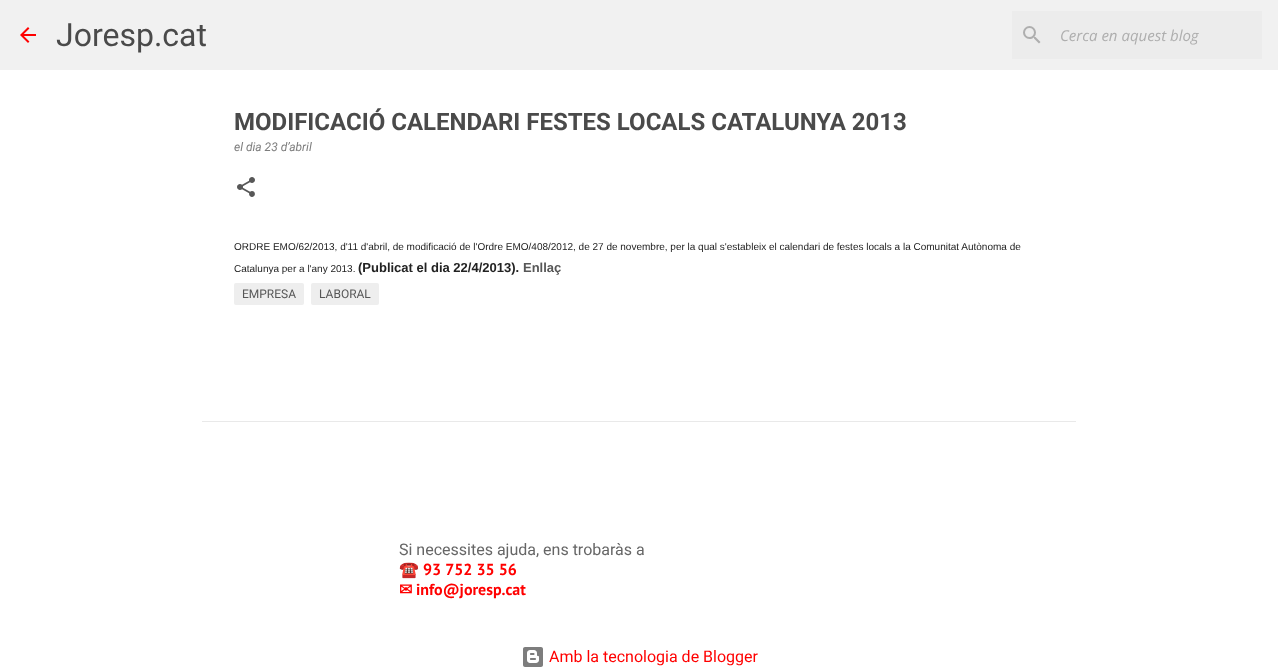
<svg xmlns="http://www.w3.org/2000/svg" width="1278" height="672">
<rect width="100%" height="100%" fill="#fff"/>
<rect width="1278" height="70" fill="#f1f1f1"/>
<image x="20" y="27" width="16" height="16" href="media/1.png"/>
<text x="56" y="46" style="font-family:Roboto;font-size:32px;fill:#4a4a4a">Joresp.cat</text>
<rect x="1012" y="11" width="250" height="48" fill="#ececec"/>
<image x="1023" y="26" width="18" height="18" href="media/2.png"/>
<text x="1060" y="41" style="font-family:Open Sans;font-size:15px;font-style:italic;fill:#aeaeae">Cerca en aquest blog</text>
<text x="234" y="130" style="font-family:Roboto;font-size:24px;font-weight:bold;fill:#4a4a4a">MODIFICACIÓ CALENDARI FESTES LOCALS CATALUNYA 2013</text>
<text x="234" y="151" style="font-family:Roboto;font-size:12px;font-style:italic;fill:#7d7d7d">el dia 23 d’abril</text>
<image x="237" y="177" width="18" height="20" href="media/3.png"/>
<text x="234" y="250" style="font-family:Liberation Sans;font-size:10px;fill:#222">ORDRE EMO/62/2013, d'11 d'abril, de modificació de l'Ordre EMO/408/2012, de 27 de novembre, per la qual s'estableix el calendari de festes locals a la Comunitat Autònoma de</text>
<text x="234" y="272" style="font-family:Liberation Sans;font-size:10px;fill:#222">Catalunya per a l'any 2013.</text>
<text x="358" y="272" style="font-family:Liberation Sans;font-size:13px;font-weight:bold;fill:#222">(Publicat el dia 22/4/2013).</text>
<text x="523" y="272" style="font-family:Liberation Sans;font-size:13px;font-weight:bold;fill:#575757">Enllaç</text>
<rect x="234" y="283" width="70" height="22" rx="2" fill="#eee"/>
<text x="242" y="298" style="font-family:Roboto;font-size:12px;fill:#575757">EMPRESA</text>
<rect x="311" y="283" width="68" height="22" rx="2" fill="#eee"/>
<text x="319" y="298" style="font-family:Roboto;font-size:12px;fill:#575757">LABORAL</text>
<rect x="202" y="421" width="874" height="1" fill="#e9e9e9"/>
<text x="399" y="555" style="font-family:Roboto;font-size:16px;fill:#666">Si necessites ajuda, ens trobaràs a</text>
<text x="399" y="575" style="font-family:Noto Color Emoji;font-size:16px;font-weight:bold;fill:#f00">☎️</text>
<text x="423" y="575" style="font-family:PT Sans;font-size:16px;font-weight:bold;fill:#f00">93 752 35 56</text>
<text x="399" y="595" style="font-family:DejaVu Sans;font-size:16px;font-weight:bold;fill:#f00">✉</text>
<text x="416" y="595" style="font-family:PT Sans;font-size:16px;font-weight:bold;fill:#f00">info@joresp.cat</text>
<image x="523" y="647" width="20" height="20" href="media/4.png"/>
<text x="549" y="662" style="font-family:Roboto;font-size:16px;fill:#f00">Amb la tecnologia de Blogger</text>
</svg>
